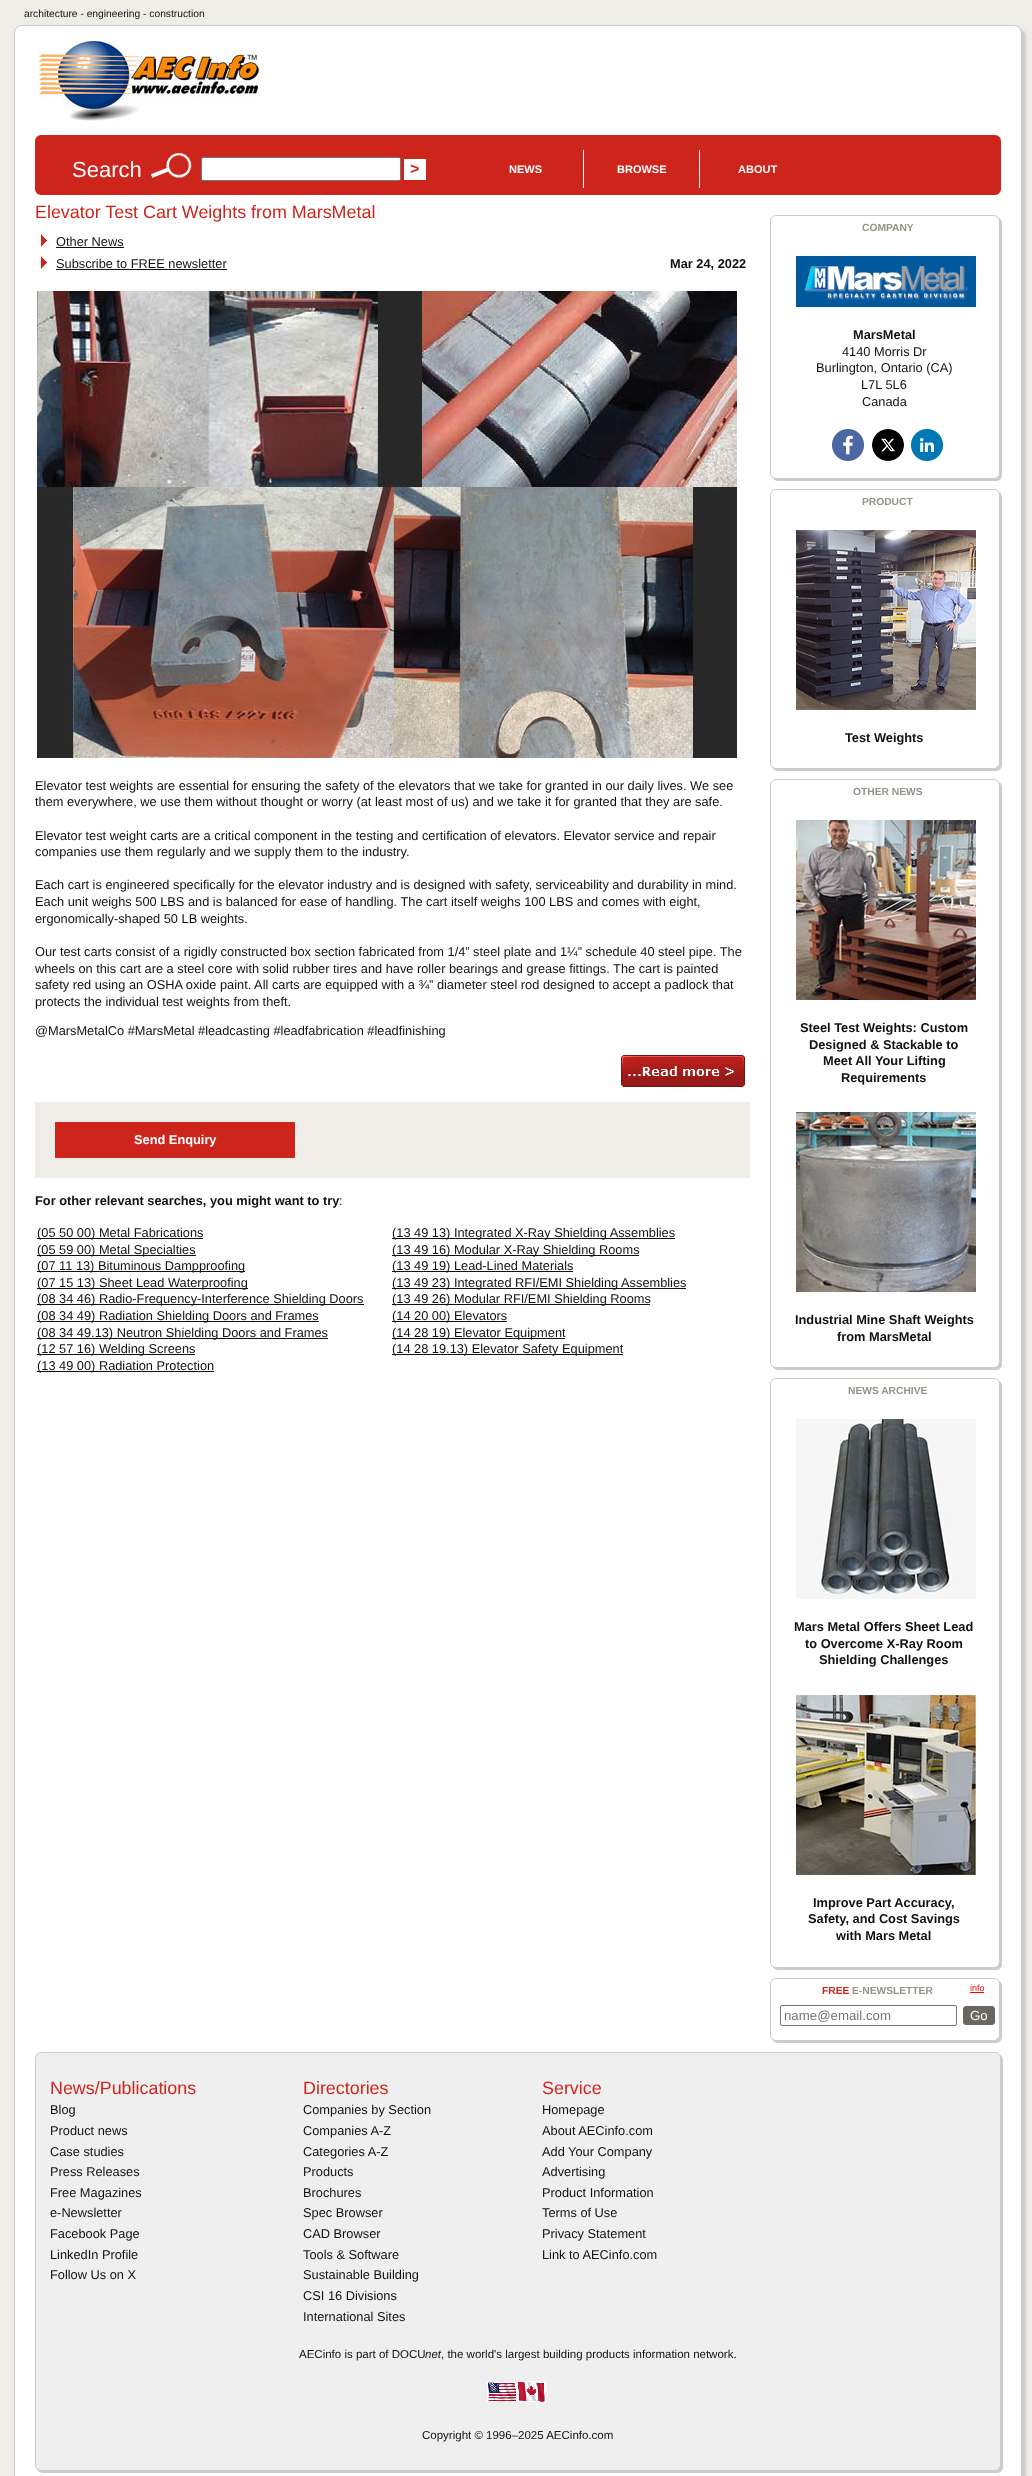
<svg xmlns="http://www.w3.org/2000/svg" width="1032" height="2476">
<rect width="100%" height="100%" fill="#eeede8"/>
<text x="24" y="17" style="font-family:Liberation Sans;font-size:10.25px;fill:#111">architecture - engineering - construction</text>
<rect x="18" y="29" width="1008" height="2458" rx="8" fill="#ccc" filter="blur(1px)"/>
<rect x="14.5" y="25.5" width="1007" height="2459" rx="7.5" fill="#fff" stroke="#cccbc6"/>
<image x="39" y="41" width="220" height="80" href="media/1.png"/>
<rect x="35" y="135" width="966" height="60" rx="6" fill="#cd251c"/>
<text x="72" y="177" style="font-family:Liberation Sans;font-size:22px;fill:#fff">Search</text>
<image x="151" y="153" width="41" height="27" href="media/2.png"/>
<rect x="201.5" y="157.5" width="199" height="23" rx="1.5" fill="#fff" stroke="#767676"/>
<rect x="404" y="159" width="22" height="21" fill="#fff"/>
<text x="410" y="174" style="font-family:Liberation Sans;font-size:16px;font-weight:bold;fill:#cd251c">&gt;</text>
<text x="509" y="173" style="font-family:Liberation Sans;font-size:11px;font-weight:bold;fill:#fff">NEWS</text>
<rect x="583" y="150" width="1" height="38" fill="#fff"/>
<text x="617" y="173" style="font-family:Liberation Sans;font-size:11px;font-weight:bold;fill:#fff">BROWSE</text>
<rect x="699" y="150" width="1" height="38" fill="#fff"/>
<text x="738" y="173" style="font-family:Liberation Sans;font-size:11px;font-weight:bold;fill:#fff">ABOUT</text>
<text x="35" y="218" style="font-family:Liberation Sans;font-size:17.9px;fill:#cd251c">Elevator Test Cart Weights from MarsMetal</text>
<image x="41" y="234" width="6" height="13" href="media/3.png"/>
<text x="56" y="246" style="font-family:Liberation Sans;font-size:12.8px;fill:#111">Other News</text>
<rect x="56" y="247" width="68" height="1" fill="#111"/>
<image x="41" y="256" width="6" height="13" href="media/3.png"/>
<text x="56" y="268" style="font-family:Liberation Sans;font-size:12.8px;fill:#111">Subscribe to FREE newsletter</text>
<rect x="56" y="269" width="171" height="1" fill="#111"/>
<text x="670" y="268" style="font-family:Liberation Sans;font-size:12.8px;font-weight:bold;fill:#111">Mar 24, 2022</text>
<image x="37" y="291" width="700" height="467" href="media/4.png"/>
<text x="35" y="790" style="font-family:Liberation Sans;font-size:12.8px;fill:#111">Elevator test weights are essential for ensuring the safety of the elevators that we take for granted in our daily lives. We see</text>
<text x="35" y="806" style="font-family:Liberation Sans;font-size:12.8px;fill:#111">them everywhere, we use them without thought or worry (at least most of us) and we take it for granted that they are safe.</text>
<text x="35" y="840" style="font-family:Liberation Sans;font-size:12.8px;fill:#111">Elevator test weight carts are a critical component in the testing and certification of elevators. Elevator service and repair</text>
<text x="35" y="856" style="font-family:Liberation Sans;font-size:12.8px;fill:#111">companies use them regularly and we supply them to the industry.</text>
<text x="35" y="889" style="font-family:Liberation Sans;font-size:12.8px;fill:#111">Each cart is engineered specifically for the elevator industry and is designed with safety, serviceability and durability in mind.</text>
<text x="35" y="906" style="font-family:Liberation Sans;font-size:12.8px;fill:#111">Each unit weighs 500 LBS and is balanced for ease of handling. The cart itself weighs 100 LBS and comes with eight,</text>
<text x="35" y="923" style="font-family:Liberation Sans;font-size:12.8px;fill:#111">ergonomically-shaped 50 LB weights.</text>
<text x="35" y="956" style="font-family:Liberation Sans;font-size:12.8px;fill:#111">Our test carts consist of a rigidly constructed box section fabricated from 1/4” steel plate and 1¼” schedule 40 steel pipe. The</text>
<text x="35" y="973" style="font-family:Liberation Sans;font-size:12.8px;fill:#111">wheels on this cart are a steel core with solid rubber tires and have roller bearings and grease fittings. The cart is painted</text>
<text x="35" y="989" style="font-family:Liberation Sans;font-size:12.8px;fill:#111">safety red using an OSHA oxide paint. All carts are equipped with a ¾” diameter steel rod designed to accept a padlock that</text>
<text x="35" y="1006" style="font-family:Liberation Sans;font-size:12.8px;fill:#111">protects the individual test weights from theft.</text>
<text x="35" y="1035" style="font-family:Liberation Sans;font-size:12.8px;fill:#111">@MarsMetalCo #MarsMetal #leadcasting #leadfabrication #leadfinishing</text>
<image x="621" y="1055" width="124" height="32" href="media/5.png"/>
<rect x="35" y="1102" width="715" height="76" fill="#eeede8"/>
<rect x="55" y="1122" width="240" height="36" fill="#cd251c"/>
<text x="134" y="1144" style="font-family:Liberation Sans;font-size:12.8px;font-weight:bold;fill:#fff">Send Enquiry</text>
<text x="35" y="1205" style="font-family:Liberation Sans;font-size:12.8px;font-weight:bold;fill:#111">For other relevant searches, you might want to try</text>
<text x="339" y="1205" style="font-family:Liberation Sans;font-size:12.8px;fill:#111">:</text>
<rect x="37" y="1238" width="166" height="1" fill="#111"/>
<text x="37" y="1237" style="font-family:Liberation Sans;font-size:12.8px;fill:#111">(05 50 00) Metal Fabrications</text>
<rect x="37" y="1255" width="159" height="1" fill="#111"/>
<text x="37" y="1254" style="font-family:Liberation Sans;font-size:12.8px;fill:#111">(05 59 00) Metal Specialties</text>
<rect x="37" y="1271" width="208" height="1" fill="#111"/>
<text x="37" y="1270" style="font-family:Liberation Sans;font-size:12.8px;fill:#111">(07 11 13) Bituminous Dampproofing</text>
<rect x="37" y="1288" width="211" height="1" fill="#111"/>
<text x="37" y="1287" style="font-family:Liberation Sans;font-size:12.8px;fill:#111">(07 15 13) Sheet Lead Waterproofing</text>
<rect x="37" y="1304" width="327" height="1" fill="#111"/>
<text x="37" y="1303" style="font-family:Liberation Sans;font-size:12.8px;fill:#111">(08 34 46) Radio-Frequency-Interference Shielding Doors</text>
<rect x="37" y="1321" width="282" height="1" fill="#111"/>
<text x="37" y="1320" style="font-family:Liberation Sans;font-size:12.8px;fill:#111">(08 34 49) Radiation Shielding Doors and Frames</text>
<rect x="37" y="1338" width="291" height="1" fill="#111"/>
<text x="37" y="1337" style="font-family:Liberation Sans;font-size:12.8px;fill:#111">(08 34 49.13) Neutron Shielding Doors and Frames</text>
<rect x="37" y="1354" width="158" height="1" fill="#111"/>
<text x="37" y="1353" style="font-family:Liberation Sans;font-size:12.8px;fill:#111">(12 57 16) Welding Screens</text>
<rect x="37" y="1371" width="177" height="1" fill="#111"/>
<text x="37" y="1370" style="font-family:Liberation Sans;font-size:12.8px;fill:#111">(13 49 00) Radiation Protection</text>
<rect x="392" y="1238" width="283" height="1" fill="#111"/>
<text x="392" y="1237" style="font-family:Liberation Sans;font-size:12.8px;fill:#111">(13 49 13) Integrated X-Ray Shielding Assemblies</text>
<rect x="392" y="1255" width="247" height="1" fill="#111"/>
<text x="392" y="1254" style="font-family:Liberation Sans;font-size:12.8px;fill:#111">(13 49 16) Modular X-Ray Shielding Rooms</text>
<rect x="392" y="1271" width="181" height="1" fill="#111"/>
<text x="392" y="1270" style="font-family:Liberation Sans;font-size:12.8px;fill:#111">(13 49 19) Lead-Lined Materials</text>
<rect x="392" y="1288" width="294" height="1" fill="#111"/>
<text x="392" y="1287" style="font-family:Liberation Sans;font-size:12.8px;fill:#111">(13 49 23) Integrated RFI/EMI Shielding Assemblies</text>
<rect x="392" y="1304" width="258" height="1" fill="#111"/>
<text x="392" y="1303" style="font-family:Liberation Sans;font-size:12.8px;fill:#111">(13 49 26) Modular RFI/EMI Shielding Rooms</text>
<rect x="392" y="1321" width="115" height="1" fill="#111"/>
<text x="392" y="1320" style="font-family:Liberation Sans;font-size:12.8px;fill:#111">(14 20 00) Elevators</text>
<rect x="392" y="1338" width="173" height="1" fill="#111"/>
<text x="392" y="1337" style="font-family:Liberation Sans;font-size:12.8px;fill:#111">(14 28 19) Elevator Equipment</text>
<rect x="392" y="1354" width="231" height="1" fill="#111"/>
<text x="392" y="1353" style="font-family:Liberation Sans;font-size:12.8px;fill:#111">(14 28 19.13) Elevator Safety Equipment</text>
<rect x="772" y="217" width="230" height="264" rx="6" fill="#ccc" filter="blur(0.5px)"/>
<rect x="770.5" y="215.5" width="229" height="263" rx="5.5" fill="#fff" stroke="#cccbc6"/>
<text x="862" y="231" style="font-family:Liberation Sans;font-size:10.25px;font-weight:bold;fill:#95948b">COMPANY</text>
<image x="796" y="256" width="180" height="51" href="media/6.png"/>
<text x="853" y="339" style="font-family:Liberation Sans;font-size:12.8px;font-weight:bold;fill:#111">MarsMetal</text>
<text x="842" y="356" style="font-family:Liberation Sans;font-size:12.8px;fill:#111">4140 Morris Dr</text>
<text x="816" y="372" style="font-family:Liberation Sans;font-size:12.8px;fill:#111">Burlington, Ontario (CA)</text>
<text x="861" y="389" style="font-family:Liberation Sans;font-size:12.8px;fill:#111">L7L 5L6</text>
<text x="862" y="406" style="font-family:Liberation Sans;font-size:12.8px;fill:#111">Canada</text>
<image x="832" y="429" width="32" height="32" href="media/7.png"/>
<image x="872" y="429" width="32" height="32" href="media/8.png"/>
<image x="911" y="429" width="32" height="32" href="media/9.png"/>
<rect x="772" y="491" width="230" height="280" rx="6" fill="#ccc" filter="blur(0.5px)"/>
<rect x="770.5" y="489.5" width="229" height="279" rx="5.5" fill="#fff" stroke="#cccbc6"/>
<text x="862" y="505" style="font-family:Liberation Sans;font-size:10.25px;font-weight:bold;fill:#95948b">PRODUCT</text>
<image x="796" y="530" width="180" height="180" href="media/10.png"/>
<text x="845" y="742" style="font-family:Liberation Sans;font-size:12.8px;font-weight:bold;fill:#111">Test Weights</text>
<rect x="772" y="781" width="230" height="589" rx="6" fill="#ccc" filter="blur(0.5px)"/>
<rect x="770.5" y="779.5" width="229" height="588" rx="5.5" fill="#fff" stroke="#cccbc6"/>
<text x="853" y="795" style="font-family:Liberation Sans;font-size:10.25px;font-weight:bold;fill:#95948b">OTHER NEWS</text>
<image x="796" y="820" width="180" height="180" href="media/11.png"/>
<text x="800" y="1032" style="font-family:Liberation Sans;font-size:12.8px;font-weight:bold;fill:#111">Steel Test Weights: Custom</text>
<text x="809" y="1049" style="font-family:Liberation Sans;font-size:12.8px;font-weight:bold;fill:#111">Designed &amp; Stackable to</text>
<text x="823" y="1065" style="font-family:Liberation Sans;font-size:12.8px;font-weight:bold;fill:#111">Meet All Your Lifting</text>
<text x="841" y="1082" style="font-family:Liberation Sans;font-size:12.8px;font-weight:bold;fill:#111">Requirements</text>
<image x="796" y="1112" width="180" height="180" href="media/12.png"/>
<text x="795" y="1324" style="font-family:Liberation Sans;font-size:12.8px;font-weight:bold;fill:#111">Industrial Mine Shaft Weights</text>
<text x="837" y="1341" style="font-family:Liberation Sans;font-size:12.8px;font-weight:bold;fill:#111">from MarsMetal</text>
<rect x="772" y="1380" width="230" height="590" rx="6" fill="#ccc" filter="blur(0.5px)"/>
<rect x="770.5" y="1378.5" width="229" height="589" rx="5.5" fill="#fff" stroke="#cccbc6"/>
<text x="848" y="1394" style="font-family:Liberation Sans;font-size:10.25px;font-weight:bold;fill:#95948b">NEWS ARCHIVE</text>
<image x="796" y="1419" width="180" height="180" href="media/13.png"/>
<text x="794" y="1631" style="font-family:Liberation Sans;font-size:12.8px;font-weight:bold;fill:#111">Mars Metal Offers Sheet Lead</text>
<text x="805" y="1648" style="font-family:Liberation Sans;font-size:12.8px;font-weight:bold;fill:#111">to Overcome X-Ray Room</text>
<text x="819" y="1664" style="font-family:Liberation Sans;font-size:12.8px;font-weight:bold;fill:#111">Shielding Challenges</text>
<image x="796" y="1695" width="180" height="180" href="media/14.png"/>
<text x="813" y="1907" style="font-family:Liberation Sans;font-size:12.8px;font-weight:bold;fill:#111">Improve Part Accuracy,</text>
<text x="808" y="1923" style="font-family:Liberation Sans;font-size:12.8px;font-weight:bold;fill:#111">Safety, and Cost Savings</text>
<text x="836" y="1940" style="font-family:Liberation Sans;font-size:12.8px;font-weight:bold;fill:#111">with Mars Metal</text>
<rect x="772" y="1980" width="230" height="63" rx="6" fill="#ccc" filter="blur(0.5px)"/>
<rect x="770.5" y="1978.5" width="229" height="62" rx="5.5" fill="#fff" stroke="#cccbc6"/>
<text x="822" y="1994" style="font-family:Liberation Sans;font-size:10.25px;font-weight:bold;fill:#cd251c">FREE</text>
<text x="852" y="1994" style="font-family:Liberation Sans;font-size:10.25px;font-weight:bold;fill:#95948b">E-NEWSLETTER</text>
<text x="970" y="1991" style="font-family:Liberation Sans;font-size:9px;fill:#f00">info</text>
<rect x="970" y="1992" width="14" height="1" fill="#f00"/>
<rect x="780.5" y="2005.5" width="176" height="20" rx="1.5" fill="none" stroke="#767676"/>
<text x="784" y="2020" style="font-family:Liberation Sans;font-size:13.25px;fill:#757575">name@email.com</text>
<rect x="963.5" y="2006.5" width="31" height="18" rx="2.5" fill="#69675f" stroke="#69675f"/>
<text x="970" y="2020" style="font-family:Liberation Sans;font-size:13.25px;fill:#fff">Go</text>
<rect x="37" y="2054" width="966" height="419" rx="6" fill="#ccc" filter="blur(0.5px)"/>
<rect x="35.5" y="2052.5" width="965" height="418" rx="5.5" fill="#efefef" stroke="#cccbc6"/>
<text x="50" y="2094" style="font-family:Liberation Sans;font-size:17.9px;fill:#cd251c">News/Publications</text>
<text x="50" y="2114" style="font-family:Liberation Sans;font-size:12.8px;fill:#111">Blog</text>
<text x="50" y="2135" style="font-family:Liberation Sans;font-size:12.8px;fill:#111">Product news</text>
<text x="50" y="2156" style="font-family:Liberation Sans;font-size:12.8px;fill:#111">Case studies</text>
<text x="50" y="2176" style="font-family:Liberation Sans;font-size:12.8px;fill:#111">Press Releases</text>
<text x="50" y="2197" style="font-family:Liberation Sans;font-size:12.8px;fill:#111">Free Magazines</text>
<text x="50" y="2217" style="font-family:Liberation Sans;font-size:12.8px;fill:#111">e-Newsletter</text>
<text x="50" y="2238" style="font-family:Liberation Sans;font-size:12.8px;fill:#111">Facebook Page</text>
<text x="50" y="2259" style="font-family:Liberation Sans;font-size:12.8px;fill:#111">LinkedIn Profile</text>
<text x="50" y="2279" style="font-family:Liberation Sans;font-size:12.8px;fill:#111">Follow Us on X</text>
<text x="303" y="2094" style="font-family:Liberation Sans;font-size:17.9px;fill:#cd251c">Directories</text>
<text x="303" y="2114" style="font-family:Liberation Sans;font-size:12.8px;fill:#111">Companies by Section</text>
<text x="303" y="2135" style="font-family:Liberation Sans;font-size:12.8px;fill:#111">Companies A-Z</text>
<text x="303" y="2156" style="font-family:Liberation Sans;font-size:12.8px;fill:#111">Categories A-Z</text>
<text x="303" y="2176" style="font-family:Liberation Sans;font-size:12.8px;fill:#111">Products</text>
<text x="303" y="2197" style="font-family:Liberation Sans;font-size:12.8px;fill:#111">Brochures</text>
<text x="303" y="2217" style="font-family:Liberation Sans;font-size:12.8px;fill:#111">Spec Browser</text>
<text x="303" y="2238" style="font-family:Liberation Sans;font-size:12.8px;fill:#111">CAD Browser</text>
<text x="303" y="2259" style="font-family:Liberation Sans;font-size:12.8px;fill:#111">Tools &amp; Software</text>
<text x="303" y="2279" style="font-family:Liberation Sans;font-size:12.8px;fill:#111">Sustainable Building</text>
<text x="303" y="2300" style="font-family:Liberation Sans;font-size:12.8px;fill:#111">CSI 16 Divisions</text>
<text x="303" y="2321" style="font-family:Liberation Sans;font-size:12.8px;fill:#111">International Sites</text>
<text x="542" y="2094" style="font-family:Liberation Sans;font-size:17.9px;fill:#cd251c">Service</text>
<text x="542" y="2114" style="font-family:Liberation Sans;font-size:12.8px;fill:#111">Homepage</text>
<text x="542" y="2135" style="font-family:Liberation Sans;font-size:12.8px;fill:#111">About AECinfo.com</text>
<text x="542" y="2156" style="font-family:Liberation Sans;font-size:12.8px;fill:#111">Add Your Company</text>
<text x="542" y="2176" style="font-family:Liberation Sans;font-size:12.8px;fill:#111">Advertising</text>
<text x="542" y="2197" style="font-family:Liberation Sans;font-size:12.8px;fill:#111">Product Information</text>
<text x="542" y="2217" style="font-family:Liberation Sans;font-size:12.8px;fill:#111">Terms of Use</text>
<text x="542" y="2238" style="font-family:Liberation Sans;font-size:12.8px;fill:#111">Privacy Statement</text>
<text x="542" y="2259" style="font-family:Liberation Sans;font-size:12.8px;fill:#111">Link to AECinfo.com</text>
<text x="299" y="2358" style="font-family:Liberation Sans;font-size:11.5px;fill:#111">AECinfo is part of DOCU</text>
<text x="425" y="2358" style="font-family:Liberation Sans;font-size:11.5px;font-style:italic;fill:#111">net</text>
<text x="441" y="2358" style="font-family:Liberation Sans;font-size:11.5px;fill:#111">, the world's largest building products information network.</text>
<image x="487" y="2381" width="59" height="21" href="media/15.png"/>
<text x="422" y="2439" style="font-family:Liberation Sans;font-size:11.5px;fill:#111">Copyright © 1996–2025 AECinfo.com</text>
</svg>
